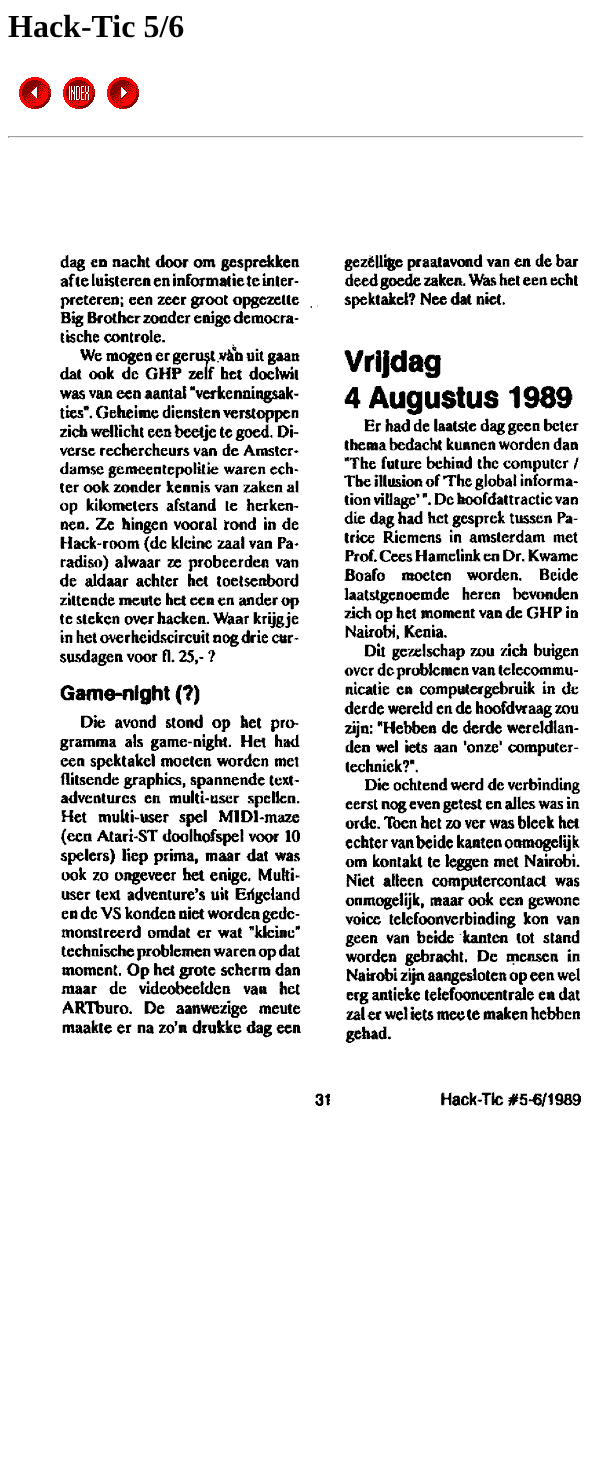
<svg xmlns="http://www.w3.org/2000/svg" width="592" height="1459">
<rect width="100%" height="100%" fill="#fff"/>
<text x="8" y="37" style="font-family:Liberation Serif;font-size:32px;font-weight:bold;fill:#000">Hack-Tic 5/6</text>
<image x="19" y="77" width="32" height="32" href="media/1.png"/>
<image x="63" y="77" width="32" height="32" href="media/2.png"/>
<image x="107" y="77" width="32" height="32" href="media/3.png"/>
<rect x="8" y="136" width="576" height="1" fill="#9f9f9f"/>
<rect x="583" y="136" width="1" height="2" fill="#eee"/>
<rect x="8" y="137" width="576" height="1" fill="#eee"/>
<rect x="8" y="136" width="1" height="2" fill="#9f9f9f"/>
<image x="60" y="253" width="521" height="854" href="media/4.png"/>
</svg>
